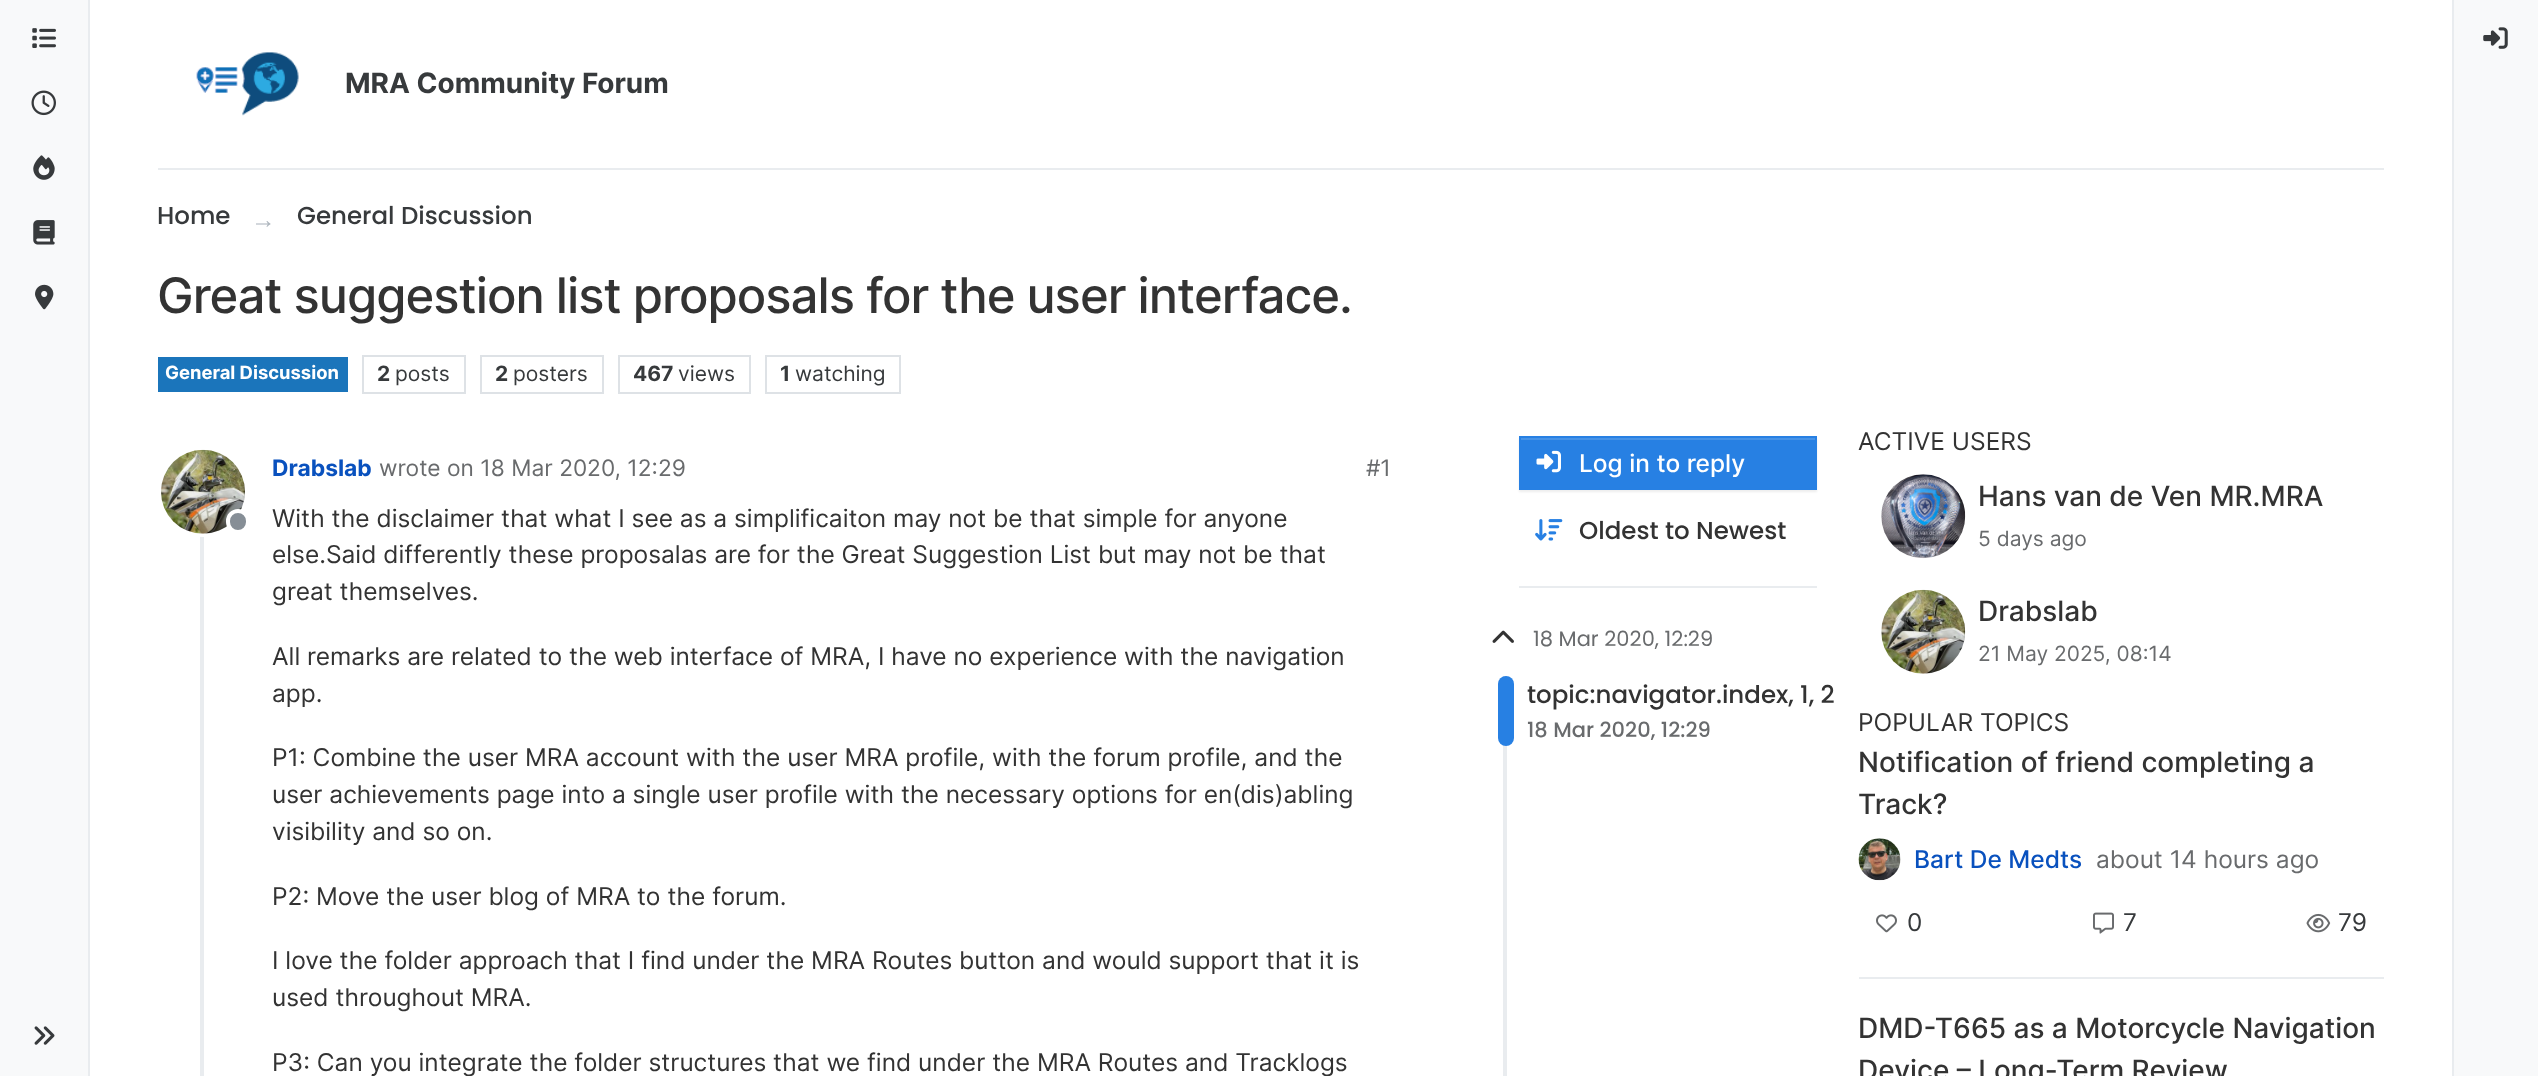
<svg xmlns="http://www.w3.org/2000/svg" width="2538" height="1076">
<rect width="100%" height="100%" fill="#fff"/>
<rect width="88" height="1076" fill="#f8f9fa"/>
<rect x="88" width="2" height="1076" fill="#e9ecef"/>
<image x="32" y="28" width="24" height="20" href="media/1.png"/>
<image x="31" y="90" width="25" height="26" href="media/2.png"/>
<image x="33" y="155" width="22" height="25" href="media/3.png"/>
<image x="33" y="220" width="22" height="25" href="media/4.png"/>
<image x="35" y="284" width="19" height="26" href="media/5.png"/>
<image x="34" y="1026" width="21" height="19" href="media/6.png"/>
<rect x="158" y="168" width="2226" height="2" fill="#e9ecef"/>
<image x="196" y="52" width="103" height="64" href="media/7.png"/>
<text x="345" y="93" style="font-family:Inter;font-size:28px;font-weight:bold;fill:#373a3c">MRA Community Forum</text>
<text x="157" y="224" style="font-family:Poppins;font-size:24.5px;font-weight:500;fill:#373a3c">Home</text>
<text x="251" y="228" style="font-family:Liberation Sans;font-size:24.5px;fill:#adb5bd">→</text>
<text x="297" y="224" style="font-family:Poppins;font-size:24.5px;font-weight:500;fill:#373a3c">General Discussion</text>
<text x="157" y="313" style="font-family:Inter;font-size:49px;font-weight:500;letter-spacing:-0.98px;fill:#333">Great suggestion list proposals for the user interface.</text>
<rect x="158" y="357" width="190" height="35" fill="#1b75bb"/>
<text x="165" y="379" style="font-family:Inter;font-size:18.4px;font-weight:bold;fill:#fff">General Discussion</text>
<rect x="363" y="356" width="102" height="37" fill="none" stroke="#dee2e6" stroke-width="2"/>
<text x="377" y="381" style="font-family:Inter;font-size:21px;font-weight:bold;fill:#373a3c">2</text>
<text x="395" y="381" style="font-family:Inter;font-size:21px;fill:#373a3c">posts</text>
<rect x="481" y="356" width="122" height="37" fill="none" stroke="#dee2e6" stroke-width="2"/>
<text x="495" y="381" style="font-family:Inter;font-size:21px;font-weight:bold;fill:#373a3c">2</text>
<text x="513" y="381" style="font-family:Inter;font-size:21px;fill:#373a3c">posters</text>
<rect x="619" y="356" width="131" height="37" fill="none" stroke="#dee2e6" stroke-width="2"/>
<text x="633" y="381" style="font-family:Inter;font-size:21px;font-weight:bold;fill:#373a3c">467</text>
<text x="678" y="381" style="font-family:Inter;font-size:21px;fill:#373a3c">views</text>
<rect x="766" y="356" width="134" height="37" fill="none" stroke="#dee2e6" stroke-width="2"/>
<text x="780" y="381" style="font-family:Inter;font-size:21px;font-weight:bold;fill:#373a3c">1</text>
<text x="795" y="381" style="font-family:Inter;font-size:21px;fill:#373a3c">watching</text>
<rect x="200" y="536" width="4" height="540" fill="#e9ecef"/>
<circle cx="203.5" cy="491.5" r="43.5" fill="none" stroke="#fff" stroke-width="4"/>
<image x="161" y="449" width="84" height="85" href="media/8.png"/>
<rect x="228" y="511" width="20" height="21" rx="10" fill="#868e96" stroke="#fff" stroke-width="4"/>
<text x="272" y="476" style="font-family:Inter;font-size:22.75px;font-weight:bold;fill:#0951be">Drabslab</text>
<text x="379" y="476" style="font-family:Inter;font-size:22.75px;fill:#696b6d">wrote on 18 Mar 2020, 12:29</text>
<text x="1366" y="476" style="font-family:Inter;font-size:22.75px;fill:#696b6d">#1</text>
<text x="272" y="527" style="font-family:Inter;font-size:24.5px;fill:#333">With the disclaimer that what I see as a simplificaiton may not be that simple for anyone</text>
<text x="272" y="563" style="font-family:Inter;font-size:24.5px;fill:#333">else.Said differently these proposalas are for the Great Suggestion List but may not be that</text>
<text x="272" y="600" style="font-family:Inter;font-size:24.5px;fill:#333">great themselves.</text>
<text x="272" y="665" style="font-family:Inter;font-size:24.5px;fill:#333">All remarks are related to the web interface of MRA, I have no experience with the navigation</text>
<text x="272" y="702" style="font-family:Inter;font-size:24.5px;fill:#333">app.</text>
<text x="272" y="766" style="font-family:Inter;font-size:24.5px;fill:#333">P1: Combine the user MRA account with the user MRA profile, with the forum profile, and the</text>
<text x="272" y="803" style="font-family:Inter;font-size:24.5px;fill:#333">user achievements page into a single user profile with the necessary options for en(dis)abling</text>
<text x="272" y="840" style="font-family:Inter;font-size:24.5px;fill:#333">visibility and so on.</text>
<text x="272" y="905" style="font-family:Inter;font-size:24.5px;fill:#333">P2: Move the user blog of MRA to the forum.</text>
<text x="272" y="969" style="font-family:Inter;font-size:24.5px;fill:#333">I love the folder approach that I find under the MRA Routes button and would support that it is</text>
<text x="272" y="1006" style="font-family:Inter;font-size:24.5px;fill:#333">used throughout MRA.</text>
<text x="272" y="1071" style="font-family:Inter;font-size:24.5px;fill:#333">P3: Can you integrate the folder structures that we find under the MRA Routes and Tracklogs</text>
<rect x="1519" y="438" width="298" height="54" fill="#00000012" filter="blur(1px)"/>
<rect x="1519" y="436" width="298" height="54" fill="#2780e3"/>
<rect x="1521" y="438" width="294" height="2" fill="#4793e7"/>
<image x="1536" y="450" width="25" height="23" href="media/9.png"/>
<text x="1579" y="472" style="font-family:Inter;font-size:24.5px;font-weight:500;fill:#fff">Log in to reply</text>
<image x="1535" y="519" width="28" height="22" href="media/10.png"/>
<text x="1579" y="539" style="font-family:Poppins;font-size:24.5px;font-weight:500;fill:#333">Oldest to Newest</text>
<rect x="1519" y="586" width="298" height="2" fill="#e9ecef"/>
<image x="1492" y="630" width="22" height="13" href="media/11.png"/>
<text x="1533" y="646" style="font-family:Poppins;font-size:21px;fill:#696b6d">18 Mar 2020, 12:29</text>
<rect x="1503" y="676" width="4" height="400" fill="#e9ecef"/>
<rect x="1498" y="676" width="16" height="70" rx="8" fill="#2780e3"/>
<text x="1527" y="703" style="font-family:Poppins;font-size:24.5px;font-weight:500;fill:#333">topic:navigator.index, 1, 2</text>
<text x="1527" y="737" style="font-family:Poppins;font-size:21px;font-weight:500;fill:#696b6d">18 Mar 2020, 12:29</text>
<text x="1858" y="450" style="font-family:Inter;font-size:24.5px;fill:#333">ACTIVE USERS</text>
<image x="1881" y="474" width="85" height="85" href="media/12.png"/>
<text x="1978" y="506" style="font-family:Inter;font-size:28px;font-weight:500;fill:#333">Hans van de Ven MR.MRA</text>
<text x="1978" y="546" style="font-family:Inter;font-size:21px;fill:#696b6d">5 days ago</text>
<image x="1881" y="589" width="85" height="85" href="media/13.png"/>
<text x="1978" y="621" style="font-family:Inter;font-size:28px;font-weight:500;fill:#333">Drabslab</text>
<text x="1978" y="661" style="font-family:Inter;font-size:21px;fill:#696b6d">21 May 2025, 08:14</text>
<text x="1858" y="731" style="font-family:Inter;font-size:24.5px;fill:#333">POPULAR TOPICS</text>
<text x="1858" y="772" style="font-family:Inter;font-size:28px;font-weight:500;fill:#333">Notification of friend completing a</text>
<text x="1858" y="814" style="font-family:Inter;font-size:28px;font-weight:500;fill:#333">Track?</text>
<image x="1858" y="838" width="43" height="43" href="media/14.png"/>
<text x="1914" y="868" style="font-family:Inter;font-size:24.5px;font-weight:500;fill:#0951be">Bart De Medts</text>
<text x="2096" y="868" style="font-family:Inter;font-size:24.5px;fill:#696b6d">about 14 hours ago</text>
<image x="1876" y="914" width="21" height="19" href="media/15.png"/>
<text x="1907" y="931" style="font-family:Inter;font-size:24.5px;fill:#373a3c">0</text>
<image x="2093" y="912" width="21" height="22" href="media/16.png"/>
<text x="2123" y="931" style="font-family:Inter;font-size:24.5px;fill:#373a3c">7</text>
<image x="2306" y="913" width="25" height="20" href="media/17.png"/>
<text x="2338" y="931" style="font-family:Inter;font-size:24.5px;fill:#373a3c">79</text>
<rect x="1859" y="977" width="525" height="2" fill="#e9ecef"/>
<text x="1858" y="1038" style="font-family:Inter;font-size:28px;font-weight:500;fill:#333">DMD-T665 as a Motorcycle Navigation</text>
<text x="1858" y="1080" style="font-family:Inter;font-size:28px;font-weight:500;fill:#333">Device – Long-Term Review</text>
<rect x="2454" width="84" height="1076" fill="#f8f9fa"/>
<rect x="2452" width="2" height="1076" fill="#e9ecef"/>
<image x="2483" y="27" width="25" height="22" href="media/18.png"/>
</svg>
